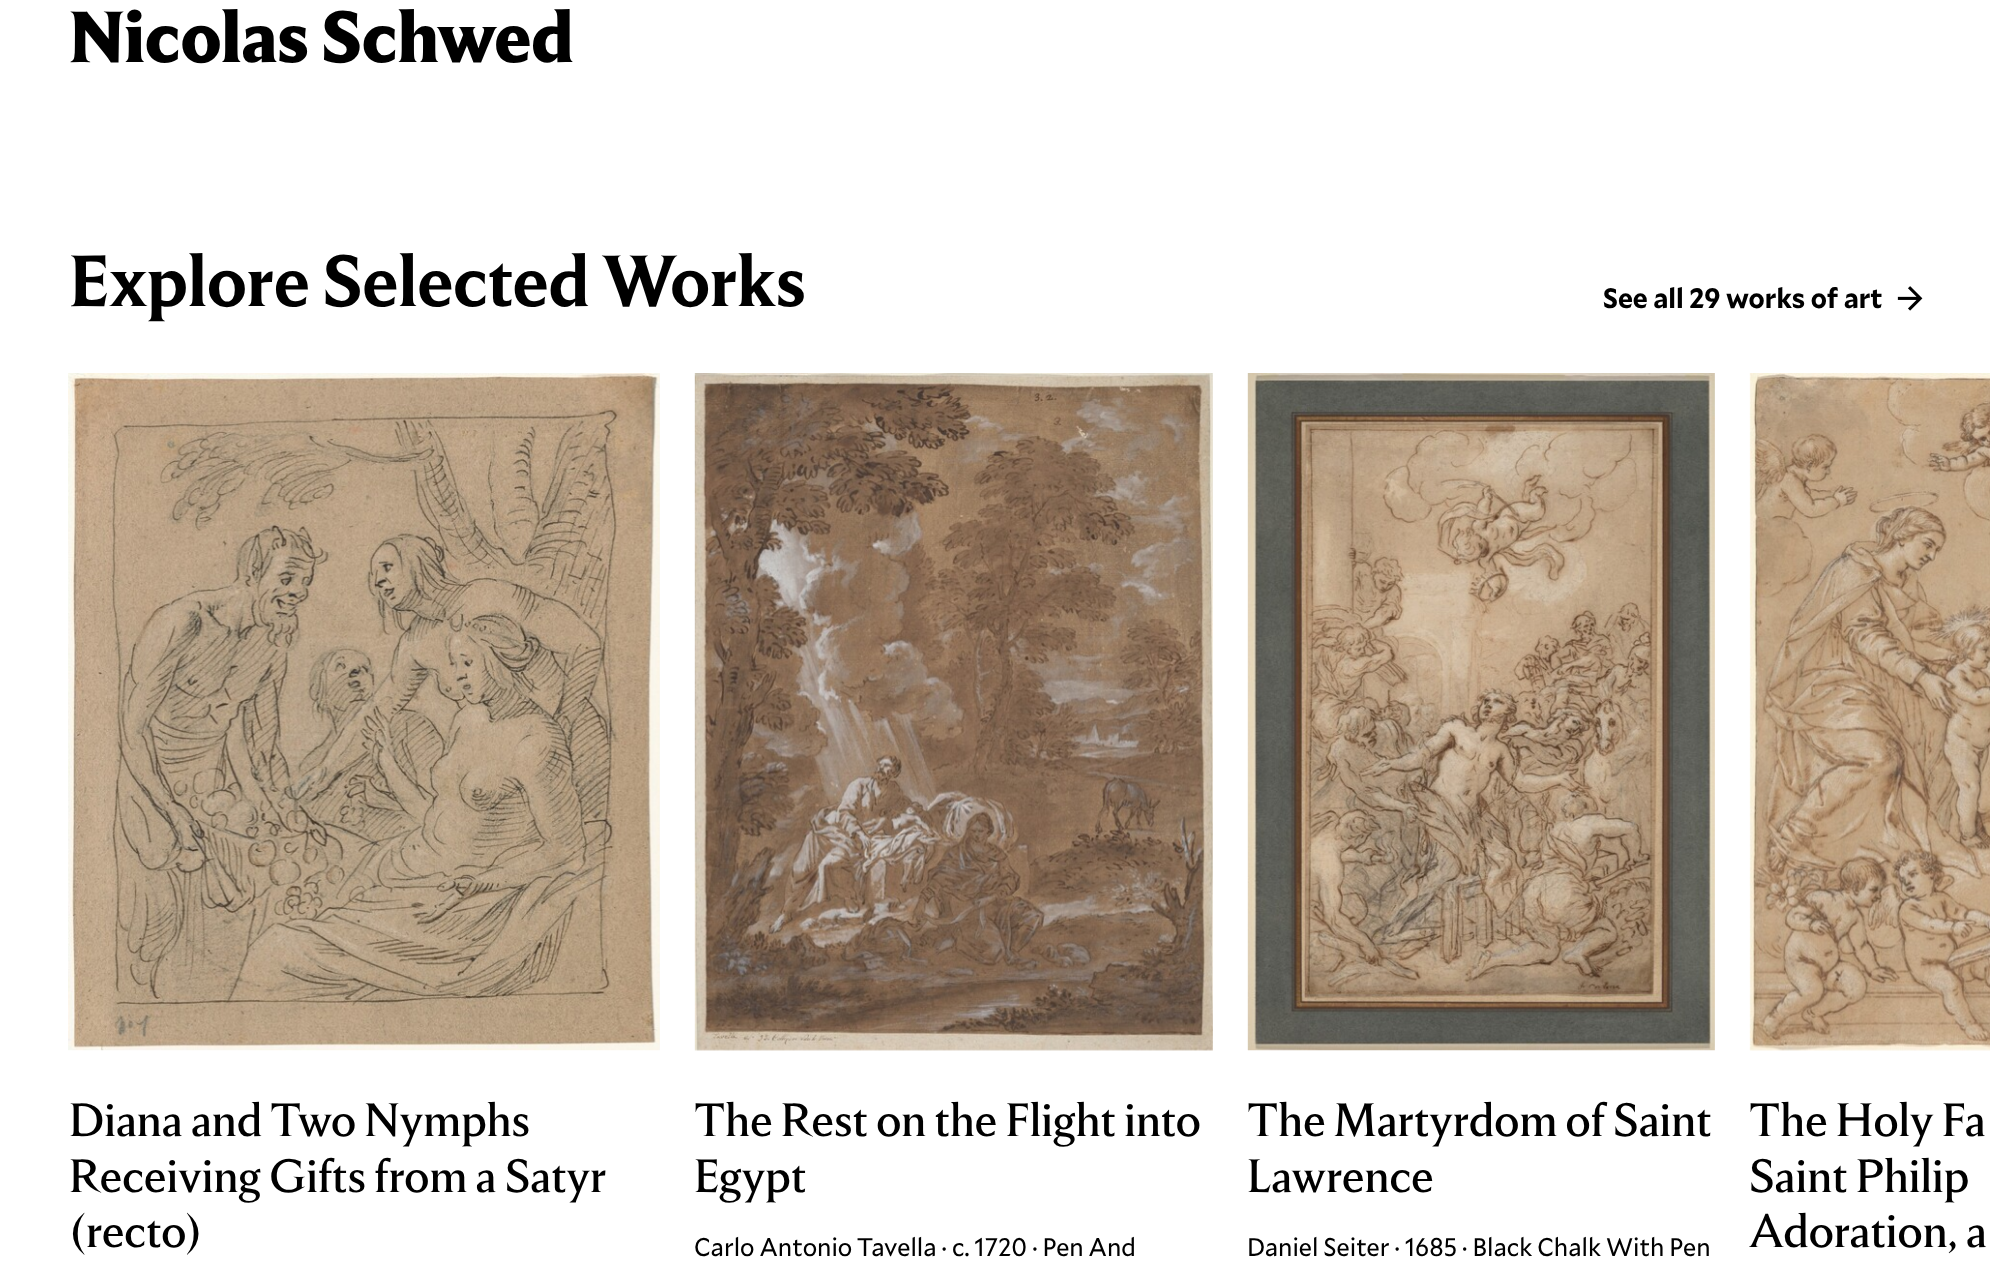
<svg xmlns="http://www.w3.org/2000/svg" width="1990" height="1279">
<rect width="100%" height="100%" fill="#fff"/>
<text x="69" y="62" style="font-family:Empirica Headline;font-size:72px;font-weight:bold;fill:#000">Nicolas Schwed</text>
<text x="69" y="306" style="font-family:Empirica Headline;font-size:72px;font-weight:500;fill:#000">Explore Selected Works</text>
<text x="1603" y="308" style="font-family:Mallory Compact;font-size:28px;font-weight:bold;fill:#000">See all 29 works of art</text>
<image x="1897" y="286" width="26" height="25" href="media/1.png"/>
<rect x="659" y="373" width="1" height="677" fill="#f7f7f7"/>
<image x="68" y="373" width="592" height="678" href="media/2.png"/>
<text x="69" y="1136" style="font-family:Empirica Headline;font-size:46.5px;fill:#000">Diana and Two Nymphs</text>
<text x="69" y="1192" style="font-family:Empirica Headline;font-size:46.5px;fill:#000">Receiving Gifts from a Satyr</text>
<text x="69" y="1247" style="font-family:Empirica Headline;font-size:46.5px;fill:#000">(recto)</text>
<image x="694" y="373" width="519" height="678" href="media/3.png"/>
<text x="694" y="1136" style="font-family:Empirica Headline;font-size:46.5px;fill:#000">The Rest on the Flight into</text>
<text x="694" y="1192" style="font-family:Empirica Headline;font-size:46.5px;fill:#000">Egypt</text>
<text x="694" y="1256" style="font-family:Mallory Compact;font-size:25.5px;fill:#000">Carlo Antonio Tavella · c. 1720 · Pen And</text>
<image x="1247" y="373" width="468" height="678" href="media/4.png"/>
<text x="1247" y="1136" style="font-family:Empirica Headline;font-size:46.5px;fill:#000">The Martyrdom of Saint</text>
<text x="1247" y="1192" style="font-family:Empirica Headline;font-size:46.5px;fill:#000">Lawrence</text>
<text x="1247" y="1256" style="font-family:Mallory Compact;font-size:25.5px;fill:#000">Daniel Seiter · 1685 · Black Chalk With Pen</text>
<image x="1749" y="373" width="241" height="678" href="media/5.png"/>
<text x="1749" y="1136" style="font-family:Empirica Headline;font-size:46.5px;fill:#000">The Holy Fa</text>
<text x="1749" y="1192" style="font-family:Empirica Headline;font-size:46.5px;fill:#000">Saint Philip</text>
<text x="1749" y="1247" style="font-family:Empirica Headline;font-size:46.5px;fill:#000">Adoration, a</text>
</svg>
